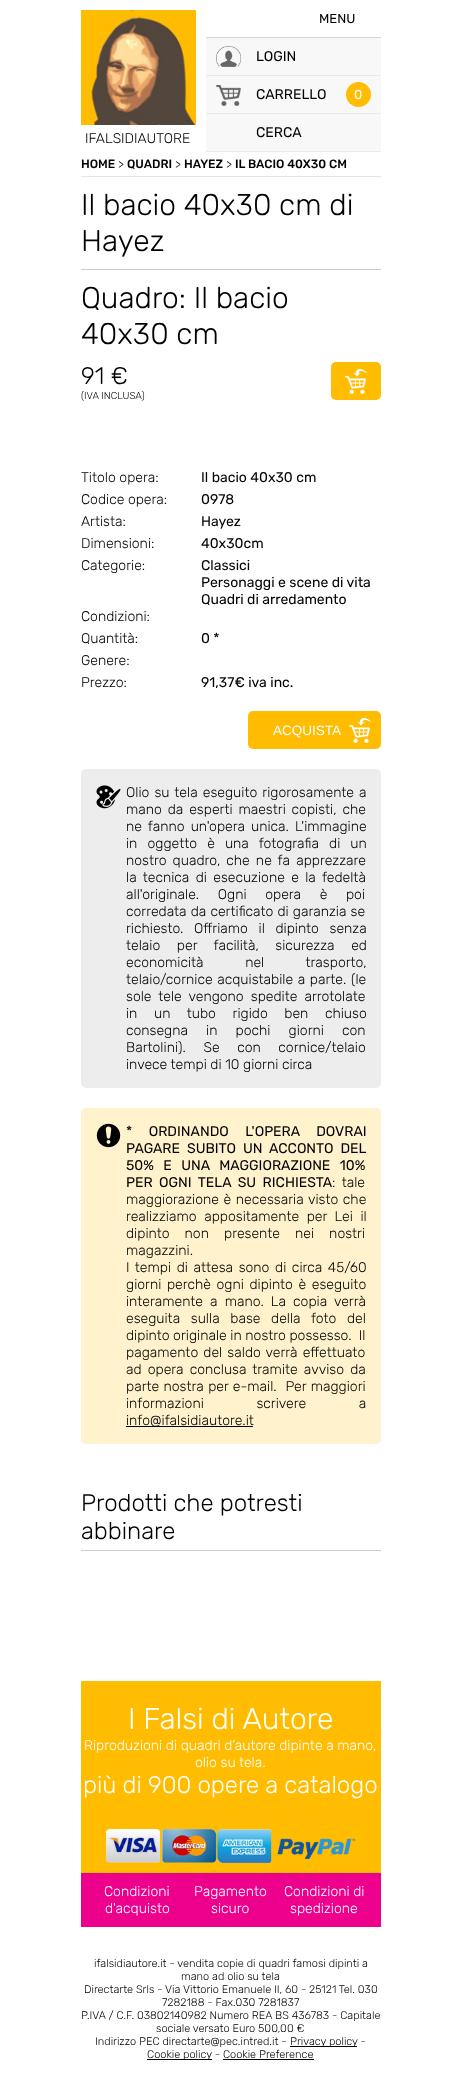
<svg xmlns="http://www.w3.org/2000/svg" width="461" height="2078">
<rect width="100%" height="100%" fill="#fff"/>
<rect x="206" y="38" width="175" height="113" fill="#f8f8f8"/>
<rect x="206" y="37" width="175" height="1" fill="#d5d5d5"/>
<text x="319" y="23" style="font-family:Rubik;font-size:13px;fill:#000">MENU</text>
<image x="216" y="46" width="25" height="21" href="media/1.png"/>
<rect x="206" y="75" width="175" height="1" fill="#eaeaea"/>
<text x="256" y="61" style="font-family:Rubik;font-size:14px;fill:#000">LOGIN</text>
<image x="216" y="85" width="25" height="21" href="media/2.png"/>
<rect x="206" y="113" width="175" height="1" fill="#eaeaea"/>
<text x="256" y="99" style="font-family:Rubik;font-size:14px;fill:#000">CARRELLO</text>
<circle cx="358.5" cy="94.5" r="12.5" fill="#ffbc01"/>
<text x="354" y="99" style="font-family:Rubik;font-size:13px;fill:#fff">0</text>
<image x="81" y="10" width="115" height="115" href="media/3.png"/>
<text x="85" y="143" style="font-family:Rubik;font-size:14px;font-weight:300;fill:#000">IFALSIDIAUTORE</text>
<rect x="206" y="151" width="175" height="1" fill="#eaeaea"/>
<text x="256" y="137" style="font-family:Rubik;font-size:14px;fill:#000">CERCA</text>
<rect x="81" y="176" width="300" height="1" fill="#e5e5e5"/>
<text x="81" y="168" style="font-family:Rubik;font-size:12px;font-weight:500;fill:#000">HOME</text>
<text x="118" y="168" style="font-family:Rubik;font-size:12px;font-weight:300;fill:#000">&gt;</text>
<text x="127" y="168" style="font-family:Rubik;font-size:12px;font-weight:500;fill:#000">QUADRI</text>
<text x="175" y="168" style="font-family:Rubik;font-size:12px;font-weight:300;fill:#000">&gt;</text>
<text x="184" y="168" style="font-family:Rubik;font-size:12px;font-weight:500;fill:#000">HAYEZ</text>
<text x="226" y="168" style="font-family:Rubik;font-size:12px;font-weight:300;fill:#000">&gt;</text>
<text x="235" y="168" style="font-family:Rubik;font-size:12px;font-weight:500;fill:#000">IL BACIO 40X30 CM</text>
<text x="81" y="215" style="font-family:Rubik;font-size:30px;font-weight:300;fill:#000">Il bacio 40x30 cm di</text>
<text x="81" y="251" style="font-family:Rubik;font-size:30px;font-weight:300;fill:#000">Hayez</text>
<rect x="81" y="269" width="300" height="1" fill="#ccc"/>
<text x="81" y="308" style="font-family:Rubik;font-size:30px;font-weight:300;fill:#000">Quadro: Il bacio</text>
<text x="81" y="344" style="font-family:Rubik;font-size:30px;font-weight:300;fill:#000">40x30 cm</text>
<text x="81" y="384" style="font-family:Rubik;font-size:24px;font-weight:300;fill:#000">91 €</text>
<text x="81" y="399" style="font-family:Rubik;font-size:10px;font-weight:300;fill:#000">(IVA INCLUSA)</text>
<rect x="331" y="362" width="50" height="38" rx="5" fill="#ffbc01"/>
<image x="345" y="369" width="22" height="25" href="media/4.png"/>
<text x="81" y="482" style="font-family:Rubik;font-size:14px;font-weight:300;fill:#000">Titolo opera:</text>
<text x="201" y="482" style="font-family:Rubik;font-size:14px;fill:#000">Il bacio 40x30 cm</text>
<text x="81" y="504" style="font-family:Rubik;font-size:14px;font-weight:300;fill:#000">Codice opera:</text>
<text x="201" y="504" style="font-family:Rubik;font-size:14px;fill:#000">0978</text>
<text x="81" y="526" style="font-family:Rubik;font-size:14px;font-weight:300;fill:#000">Artista:</text>
<text x="201" y="526" style="font-family:Rubik;font-size:14px;fill:#000">Hayez</text>
<text x="81" y="548" style="font-family:Rubik;font-size:14px;font-weight:300;fill:#000">Dimensioni:</text>
<text x="201" y="548" style="font-family:Rubik;font-size:14px;fill:#000">40x30cm</text>
<text x="81" y="570" style="font-family:Rubik;font-size:14px;font-weight:300;fill:#000">Categorie:</text>
<text x="201" y="570" style="font-family:Rubik;font-size:14px;fill:#000">Classici</text>
<text x="201" y="587" style="font-family:Rubik;font-size:14px;fill:#000">Personaggi e scene di vita</text>
<text x="201" y="604" style="font-family:Rubik;font-size:14px;fill:#000">Quadri di arredamento</text>
<text x="81" y="621" style="font-family:Rubik;font-size:14px;font-weight:300;fill:#000">Condizioni:</text>
<text x="81" y="643" style="font-family:Rubik;font-size:14px;font-weight:300;fill:#000">Quantità:</text>
<text x="201" y="643" style="font-family:Rubik;font-size:14px;fill:#000">0 *</text>
<text x="81" y="665" style="font-family:Rubik;font-size:14px;font-weight:300;fill:#000">Genere:</text>
<text x="81" y="687" style="font-family:Rubik;font-size:14px;font-weight:300;fill:#000">Prezzo:</text>
<text x="201" y="687" style="font-family:Rubik;font-size:14px;fill:#000">91,37€ iva inc.</text>
<rect x="248" y="711" width="133" height="38" rx="5" fill="#ffbc01"/>
<image x="349" y="718" width="22" height="25" href="media/4.png"/>
<text x="273" y="735" style="font-family:Liberation Sans;font-size:13.5px;fill:#fff">ACQUISTA</text>
<rect x="81" y="769" width="300" height="319" rx="5" fill="#ededed"/>
<image x="96" y="785" width="25" height="24" href="media/5.png"/>
<text x="126" y="797" word-spacing="1.5" style="font-family:Rubik;font-size:14px;font-weight:300;fill:#000">Olio su tela eseguito rigorosamente a</text>
<text x="126" y="814" word-spacing="2.25" style="font-family:Rubik;font-size:14px;font-weight:300;fill:#000">mano da esperti maestri copisti, che</text>
<text x="126" y="831" word-spacing="2.5" style="font-family:Rubik;font-size:14px;font-weight:300;fill:#000">ne fanno un'opera unica. L'immagine</text>
<text x="126" y="848" word-spacing="6.5" style="font-family:Rubik;font-size:14px;font-weight:300;fill:#000">in oggetto è una fotografia di un</text>
<text x="126" y="865" word-spacing="2.5" style="font-family:Rubik;font-size:14px;font-weight:300;fill:#000">nostro quadro, che ne fa apprezzare</text>
<text x="126" y="882" word-spacing="2.75" style="font-family:Rubik;font-size:14px;font-weight:300;fill:#000">la tecnica di esecuzione e la fedeltà</text>
<text x="126" y="899" word-spacing="15" style="font-family:Rubik;font-size:14px;font-weight:300;fill:#000">all'originale. Ogni opera è poi</text>
<text x="126" y="916" word-spacing="0.5" style="font-family:Rubik;font-size:14px;font-weight:300;fill:#000">corredata da certificato di garanzia se</text>
<text x="126" y="933" word-spacing="7" style="font-family:Rubik;font-size:14px;font-weight:300;fill:#000">richiesto. Offriamo il dipinto senza</text>
<text x="126" y="950" word-spacing="13" style="font-family:Rubik;font-size:14px;font-weight:300;fill:#000">telaio per facilità, sicurezza ed</text>
<text x="126" y="967" word-spacing="38" style="font-family:Rubik;font-size:14px;font-weight:300;fill:#000">economicità nel trasporto,</text>
<text x="126" y="984" word-spacing="1" style="font-family:Rubik;font-size:14px;font-weight:300;fill:#000">telaio/cornice acquistabile a parte. (le</text>
<text x="126" y="1001" word-spacing="3.5" style="font-family:Rubik;font-size:14px;font-weight:300;fill:#000">sole tele vengono spedite arrotolate</text>
<text x="126" y="1018" word-spacing="13" style="font-family:Rubik;font-size:14px;font-weight:300;fill:#000">in un tubo rigido ben chiuso</text>
<text x="126" y="1035" word-spacing="14.5" style="font-family:Rubik;font-size:14px;font-weight:300;fill:#000">consegna in pochi giorni con</text>
<text x="126" y="1052" word-spacing="14" style="font-family:Rubik;font-size:14px;font-weight:300;fill:#000">Bartolini). Se con cornice/telaio</text>
<text x="126" y="1069" style="font-family:Rubik;font-size:14px;font-weight:300;fill:#000">invece tempi di 10 giorni circa</text>
<rect x="81" y="1108" width="300" height="336" rx="5" fill="#fff2cc"/>
<image x="96" y="1123" width="25" height="25" href="media/6.png"/>
<text x="126" y="1136" word-spacing="13" style="font-family:Rubik;font-size:14px;fill:#000">* ORDINANDO L'OPERA DOVRAI</text>
<text x="126" y="1153" word-spacing="3.5" style="font-family:Rubik;font-size:14px;fill:#000">PAGARE SUBITO UN ACCONTO DEL</text>
<text x="126" y="1170" word-spacing="6" style="font-family:Rubik;font-size:14px;fill:#000">50% E UNA MAGGIORAZIONE 10%</text>
<text x="126" y="1187" word-spacing="3" style="font-family:Rubik;font-size:14px;fill:#000">PER OGNI TELA SU RICHIESTA</text>
<text x="332" y="1187" word-spacing="3" style="font-family:Rubik;font-size:14px;font-weight:300;fill:#000">: tale</text>
<text x="126" y="1204" word-spacing="1" style="font-family:Rubik;font-size:14px;font-weight:300;fill:#000">maggiorazione è necessaria visto che</text>
<text x="126" y="1221" word-spacing="4" style="font-family:Rubik;font-size:14px;font-weight:300;fill:#000">realizziamo appositamente per Lei il</text>
<text x="126" y="1238" word-spacing="11.5" style="font-family:Rubik;font-size:14px;font-weight:300;fill:#000">dipinto non presente nei nostri</text>
<text x="126" y="1255" style="font-family:Rubik;font-size:14px;font-weight:300;fill:#000">magazzini.</text>
<text x="126" y="1272" word-spacing="2" style="font-family:Rubik;font-size:14px;font-weight:300;fill:#000">I tempi di attesa sono di circa 45/60</text>
<text x="126" y="1289" word-spacing="2" style="font-family:Rubik;font-size:14px;font-weight:300;fill:#000">giorni perchè ogni dipinto è eseguito</text>
<text x="126" y="1306" word-spacing="3.5" style="font-family:Rubik;font-size:14px;font-weight:300;fill:#000">interamente a mano. La copia verrà</text>
<text x="126" y="1323" word-spacing="7" style="font-family:Rubik;font-size:14px;font-weight:300;fill:#000">eseguita sulla base della foto del</text>
<text x="126" y="1340" style="font-family:Rubik;font-size:14px;font-weight:300;fill:#000" xml:space="preserve">dipinto originale in nostro possesso.  Il</text>
<text x="126" y="1357" word-spacing="1.5" style="font-family:Rubik;font-size:14px;font-weight:300;fill:#000">pagamento del saldo verrà effettuato</text>
<text x="126" y="1374" word-spacing="2.5" style="font-family:Rubik;font-size:14px;font-weight:300;fill:#000">ad opera conclusa tramite avviso da</text>
<text x="126" y="1391" word-spacing="0.75" style="font-family:Rubik;font-size:14px;font-weight:300;fill:#000" xml:space="preserve">parte nostra per e-mail.  Per maggiori</text>
<text x="126" y="1408" word-spacing="49" style="font-family:Rubik;font-size:14px;font-weight:300;fill:#000">informazioni scrivere a</text>
<rect x="126" y="1426" width="127" height="1" fill="#000"/>
<text x="126" y="1425" style="font-family:Rubik;font-size:14px;font-weight:300;fill:#000">info@ifalsidiautore.it</text>
<rect x="81" y="1550" width="300" height="1" fill="#ccc"/>
<text x="81" y="1511" style="font-family:Rubik;font-size:24px;font-weight:300;fill:#000">Prodotti che potresti</text>
<text x="81" y="1539" style="font-family:Rubik;font-size:24px;font-weight:300;fill:#000">abbinare</text>
<rect x="81" y="1681" width="300" height="192" fill="#ffbc01"/>
<text x="128" y="1729" style="font-family:Rubik;font-size:30px;font-weight:300;fill:#fff">I Falsi di Autore</text>
<text x="84" y="1750" style="font-family:Rubik;font-size:14px;font-weight:300;fill:#fff">Riproduzioni di quadri d’autore dipinte a mano,</text>
<text x="195" y="1767" style="font-family:Rubik;font-size:14px;font-weight:300;fill:#fff">olio su tela.</text>
<text x="83" y="1793" style="font-family:Rubik;font-size:24px;font-weight:300;fill:#fff">più di 900 opere a catalogo</text>
<image x="106" y="1829" width="250" height="34" href="media/7.png"/>
<rect x="81" y="1873" width="300" height="54" fill="#ec008c"/>
<text x="104" y="1896" style="font-family:Rubik;font-size:14px;font-weight:300;fill:#fff">Condizioni</text>
<text x="105" y="1913" style="font-family:Rubik;font-size:14px;font-weight:300;fill:#fff">d'acquisto</text>
<text x="194" y="1896" style="font-family:Rubik;font-size:14px;font-weight:300;fill:#fff">Pagamento</text>
<text x="211" y="1913" style="font-family:Rubik;font-size:14px;font-weight:300;fill:#fff">sicuro</text>
<text x="284" y="1896" style="font-family:Rubik;font-size:14px;font-weight:300;fill:#fff">Condizioni di</text>
<text x="290" y="1913" style="font-family:Rubik;font-size:14px;font-weight:300;fill:#fff">spedizione</text>
<text x="94" y="1967" style="font-family:Rubik;font-size:11px;font-weight:300;fill:#000">ifalsidiautore.it - vendita copie di quadri famosi dipinti a</text>
<text x="181" y="1980" style="font-family:Rubik;font-size:11px;font-weight:300;fill:#000">mano ad olio su tela</text>
<text x="84" y="1993" style="font-family:Rubik;font-size:11px;font-weight:300;fill:#000">Directarte Srls - Via Vittorio Emanuele II, 60 - 25121 Tel. 030</text>
<text x="162" y="2006" style="font-family:Rubik;font-size:11px;font-weight:300;fill:#000">7282188 - Fax.030 7281837</text>
<text x="81" y="2019" style="font-family:Rubik;font-size:11px;font-weight:300;fill:#000">P.IVA / C.F. 03802140982 Numero REA BS 436783 - Capitale</text>
<text x="156" y="2032" style="font-family:Rubik;font-size:11px;font-weight:300;fill:#000">sociale versato Euro 500,00 €</text>
<text x="95" y="2045" style="font-family:Rubik;font-size:11px;font-weight:300;fill:#000">Indirizzo PEC directarte@pec.intred.it -</text>
<rect x="290" y="2046" width="67" height="1" fill="#000"/>
<text x="290" y="2045" style="font-family:Rubik;font-size:11px;font-weight:300;fill:#000">Privacy policy -</text>
<rect x="147" y="2059" width="65" height="1" fill="#000"/>
<text x="147" y="2058" style="font-family:Rubik;font-size:11px;font-weight:300;fill:#000">Cookie policy - Cookie Preference</text>
<rect x="223" y="2059" width="91" height="1" fill="#000"/>
</svg>
